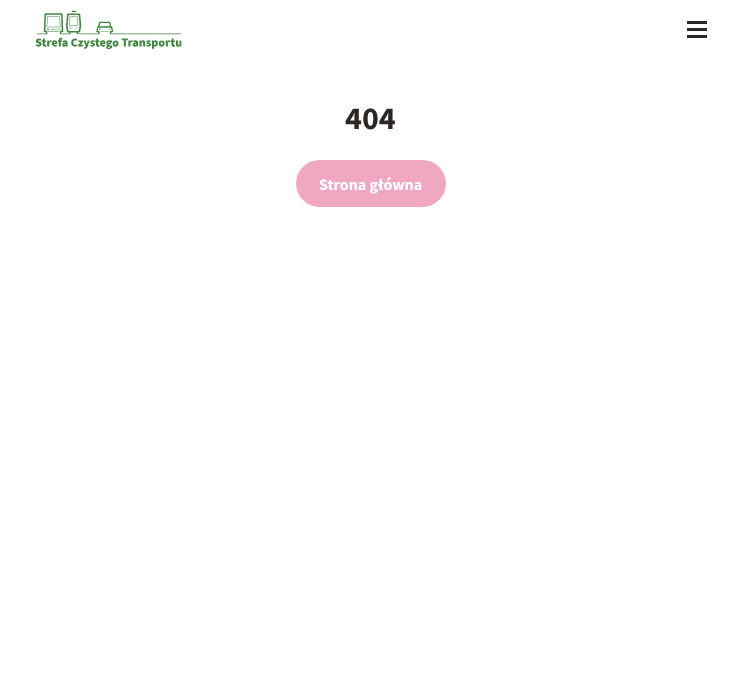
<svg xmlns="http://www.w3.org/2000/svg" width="741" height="698">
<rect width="100%" height="100%" fill="#fff"/>
<image x="35" y="10" width="147" height="39" href="media/1.png"/>
<rect x="687" y="21" width="20" height="3" fill="#2d2725"/>
<rect x="687" y="28" width="20" height="3" fill="#2d2725"/>
<rect x="687" y="35" width="20" height="3" fill="#2d2725"/>
<text x="345" y="129" style="font-family:Source Sans Pro;font-size:32px;font-weight:bold;fill:#2d2725">404</text>
<rect x="296" y="160" width="150" height="47" rx="23.5" fill="#f0a8c2"/>
<text x="319" y="190" style="font-family:Source Sans Pro;font-size:16px;font-weight:bold;fill:#fff">Strona główna</text>
</svg>
